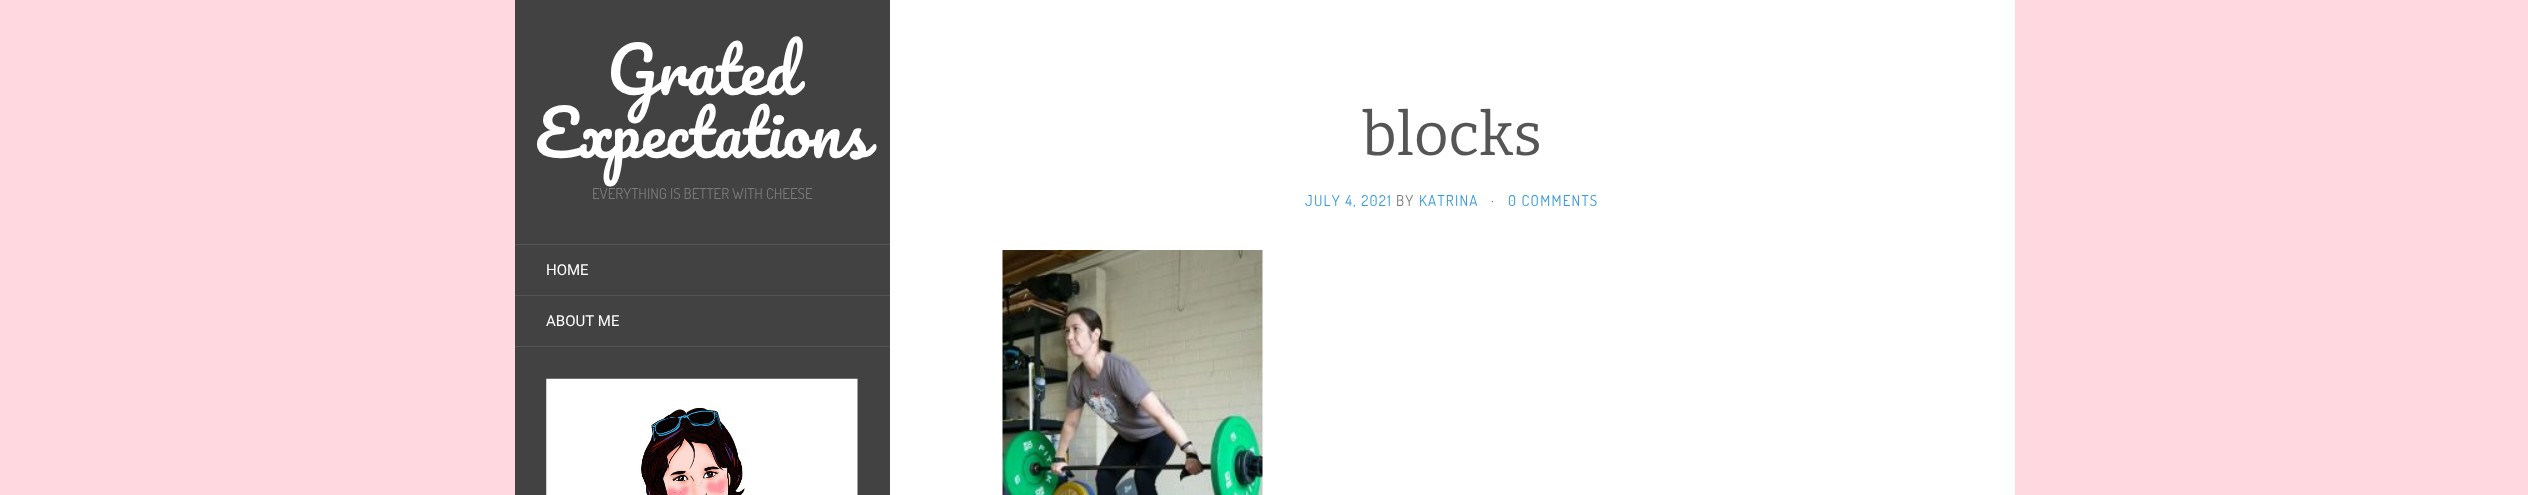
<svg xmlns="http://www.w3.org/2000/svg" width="2528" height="495">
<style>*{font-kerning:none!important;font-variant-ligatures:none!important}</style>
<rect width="100%" height="100%" fill="#ffd9df"/>
<rect x="890" width="1125" height="495" fill="#fff"/>
<rect x="515" width="375" height="495" fill="#424242"/>
<rect x="515" y="244" width="375" height="1" fill="#555"/>
<text x="607" y="95" style="font-family:Pacifico;font-size:62.5px;fill:#fff">Grated</text>
<text x="535" y="158" style="font-family:Pacifico;font-size:62.5px;fill:#fff">Expectations</text>
<text x="592" y="199" style="font-family:Dosis;font-size:15px;fill:#7b7b7b">EVERYTHING IS BETTER WITH CHEESE</text>
<rect x="515" y="295" width="375" height="1" fill="#555"/>
<text x="546" y="275" style="font-family:Roboto;font-size:15px;fill:#fff">HOME</text>
<rect x="515" y="346" width="375" height="1" fill="#555"/>
<text x="546" y="326" style="font-family:Roboto;font-size:15px;fill:#fff">ABOUT ME</text>
<image x="546" y="378" width="312" height="117" href="media/1.png"/>
<text x="1362" y="155" style="font-family:Bitter;font-size:60px;font-weight:100;fill:#555">blocks</text>
<text x="1305" y="206" style="font-family:Dosis;font-size:15px;letter-spacing:1.25px;fill:#3699dc">JULY 4, 2021</text>
<text x="1396" y="206" style="font-family:Dosis;font-size:15px;letter-spacing:1.25px;fill:#7b7b7b">BY</text>
<text x="1419" y="206" style="font-family:Dosis;font-size:15px;letter-spacing:1.25px;fill:#3699dc">KATRINA</text>
<text x="1491" y="206" style="font-family:Dosis;font-size:15px;letter-spacing:1.25px;fill:#7b7b7b">·</text>
<text x="1508" y="206" style="font-family:Dosis;font-size:15px;letter-spacing:1.25px;fill:#3699dc">0 COMMENTS</text>
<image x="1002" y="250" width="261" height="245" href="media/2.png"/>
</svg>
